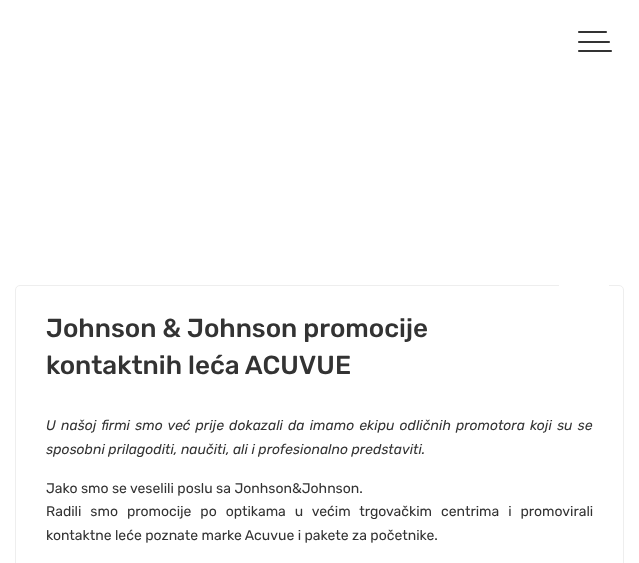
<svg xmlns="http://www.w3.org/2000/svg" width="639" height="563">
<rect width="100%" height="100%" fill="#fff"/>
<path d="M579 31h16v2h-16c-.5 0-1-.5-1-1c0-.5 .5-1 1-1z" fill="#333"/>
<path d="M595 31h11c.5 0 1 .5 1 1c0 .5-.5 1-1 1h-11z" fill="#333"/>
<path d="M579 41h16v2h-16c-.5 0-1-.5-1-1c0-.5 .5-1 1-1z" fill="#333"/>
<path d="M595 41h14c.5 0 1 .5 1 1c0 .5-.5 1-1 1h-14z" fill="#333"/>
<path d="M579 50h16v2h-16c-.5 0-1-.5-1-1c0-.5 .5-1 1-1z" fill="#333"/>
<path d="M595 50h16c.5 0 1 .5 1 1c0 .5-.5 1-1 1h-16z" fill="#333"/>
<rect x="15.5" y="285.5" width="608" height="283" rx="4.5" fill="none" stroke="#eee"/>
<rect x="559" y="255" width="50" height="160" rx="25" fill="#fff"/>
<text x="46" y="337" style="font-family:Rubik;font-size:26px;font-weight:500;fill:#333">Johnson &amp; Johnson promocije</text>
<text x="46" y="374" style="font-family:Rubik;font-size:26px;font-weight:500;fill:#333">kontaktnih leća ACUVUE</text>
<text x="46" y="430" word-spacing="1.6" style="font-family:Rubik;font-size:14px;font-style:italic;fill:#333">U našoj firmi smo već prije dokazali da imamo ekipu odličnih promotora koji su se</text>
<text x="46" y="454" style="font-family:Rubik;font-size:14px;font-style:italic;fill:#333">sposobni prilagoditi, naučiti, ali i profesionalno predstaviti.</text>
<text x="46" y="493" style="font-family:Rubik;font-size:14px;fill:#333">Jako smo se veselili poslu sa Jonhson&amp;Johnson.</text>
<text x="46" y="516" word-spacing="5.5" style="font-family:Rubik;font-size:14px;fill:#333">Radili smo promocije po optikama u većim trgovačkim centrima i promovirali</text>
<text x="46" y="540" style="font-family:Rubik;font-size:14px;fill:#333">kontaktne leće poznate marke Acuvue i pakete za početnike.</text>
</svg>
